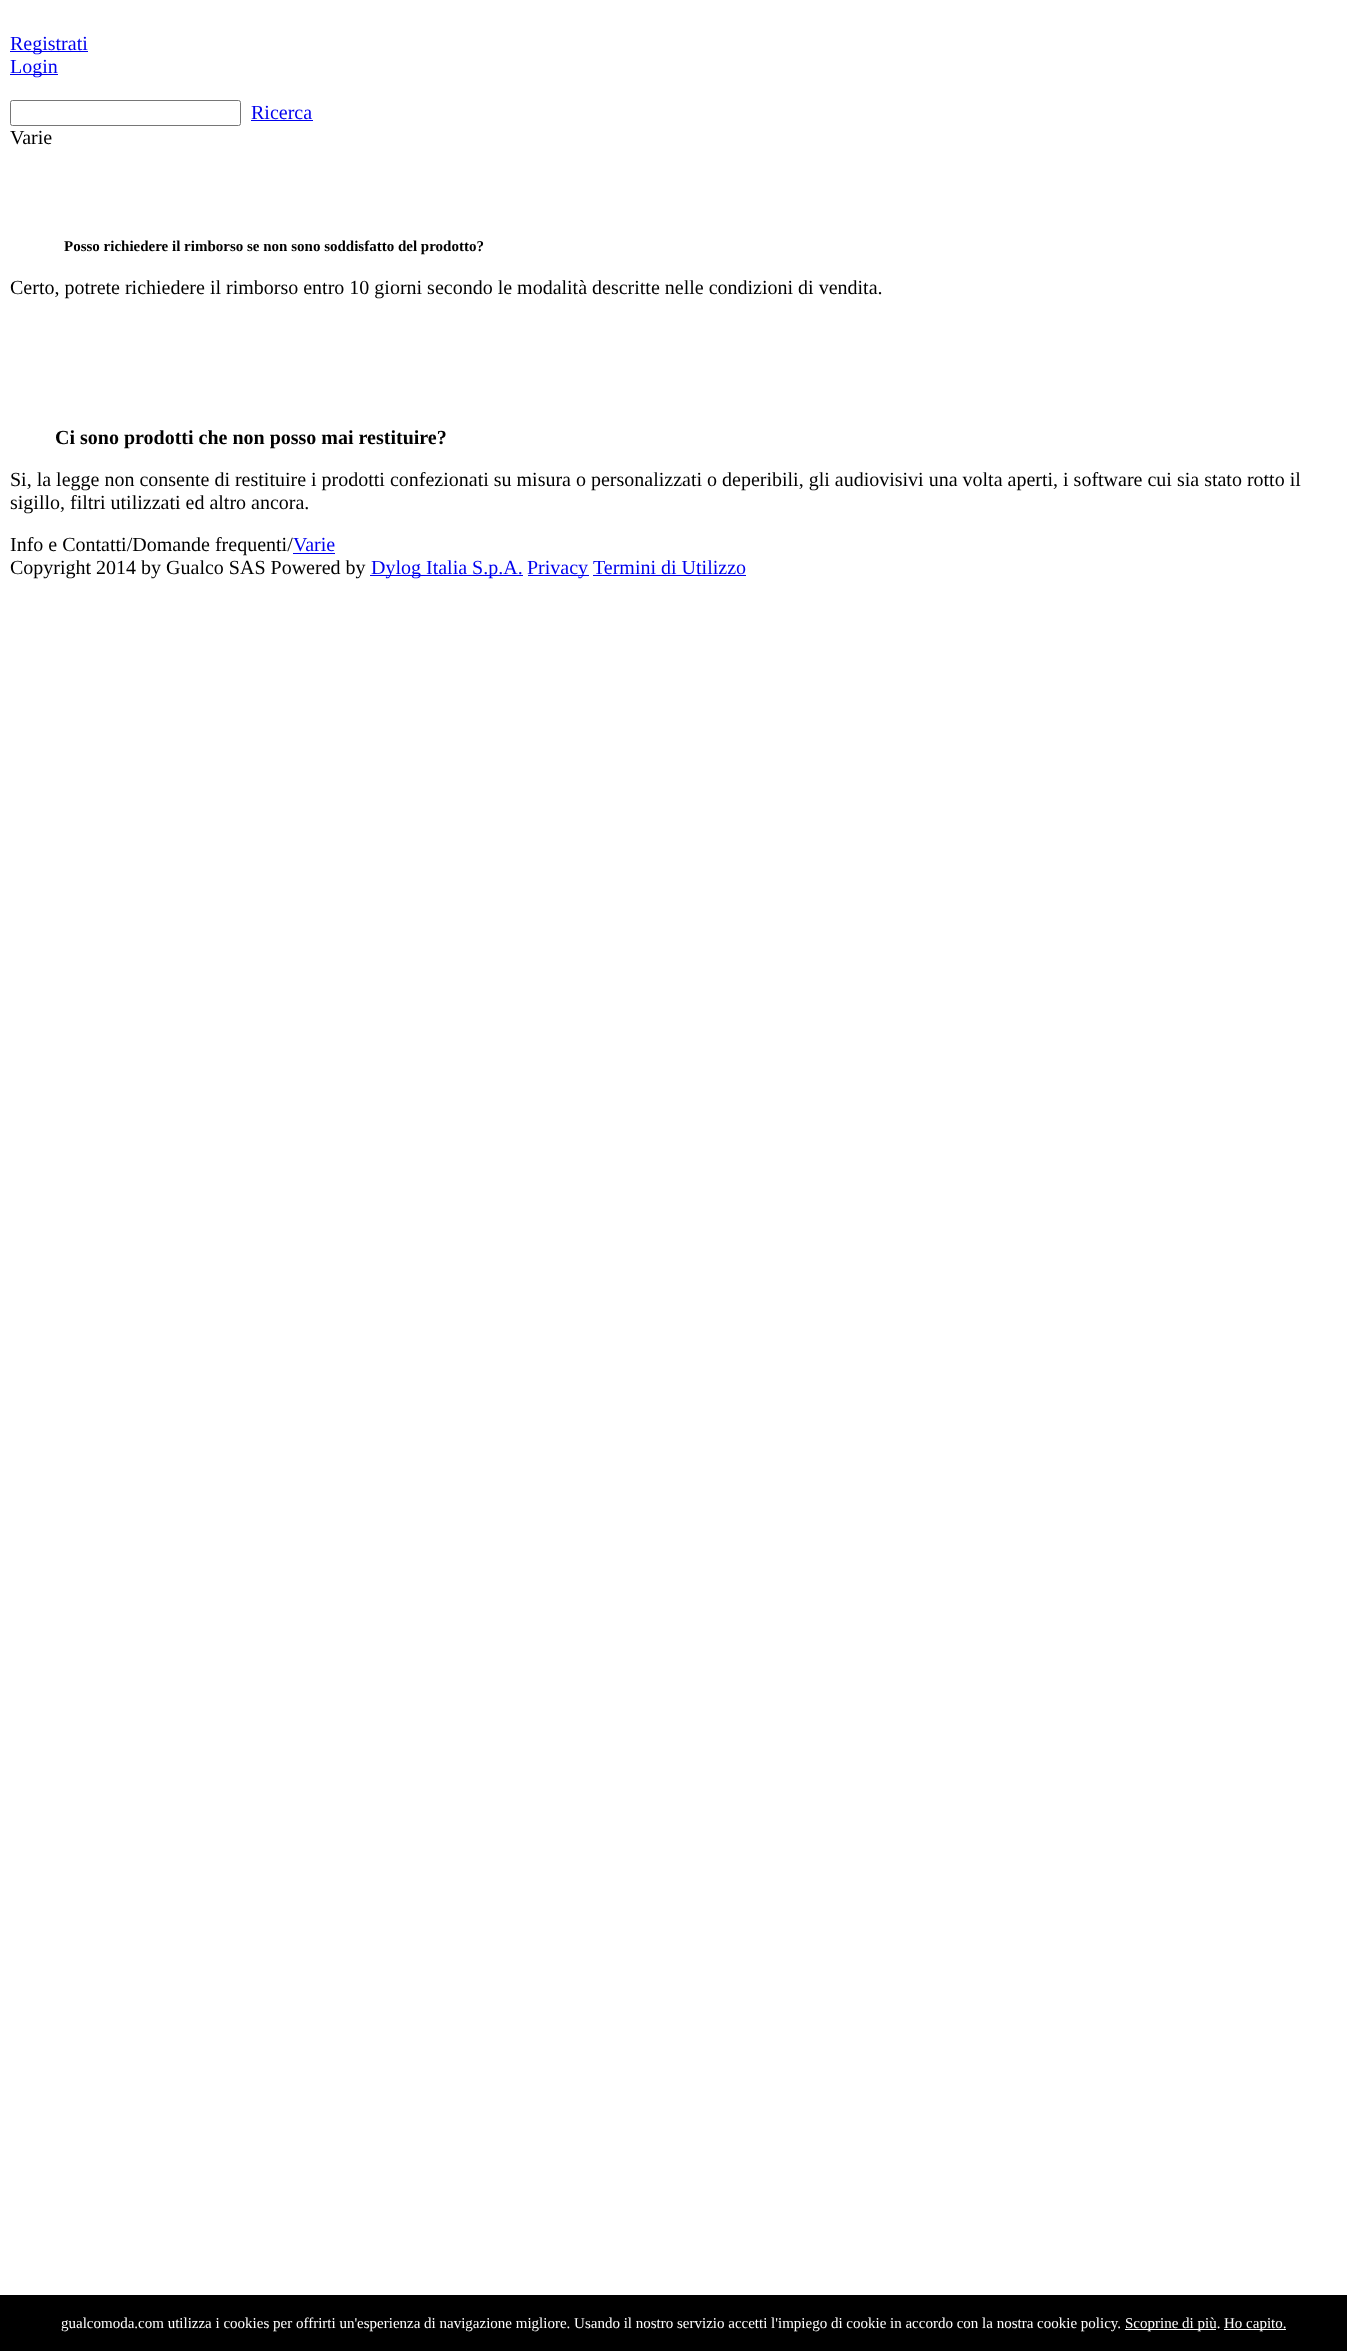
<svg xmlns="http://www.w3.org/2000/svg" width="1347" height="2351">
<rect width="100%" height="100%" fill="#fff"/>
<rect x="10" y="51" width="78" height="1" fill="#00e"/>
<text x="10" y="50" style="font-family:Liberation Serif;font-size:20px;fill:#00e">Registrati</text>
<rect x="10" y="74" width="48" height="1" fill="#00e"/>
<text x="10" y="73" style="font-family:Liberation Serif;font-size:20px;fill:#00e">Login</text>
<rect x="10.5" y="100.5" width="230" height="25" rx="2" fill="none" stroke="#767676"/>
<text x="251" y="119" style="font-family:Liberation Serif;font-size:20px;fill:#00e">Ricerca</text>
<rect x="251" y="120" width="62" height="1" fill="#00e"/>
<text x="10" y="144" style="font-family:Liberation Serif;font-size:20px;fill:#000">Varie</text>
<text x="64" y="251" style="font-family:Liberation Serif;font-size:15px;font-weight:bold;fill:#000">Posso richiedere il rimborso se non sono soddisfatto del prodotto?</text>
<text x="10" y="294" style="font-family:Liberation Serif;font-size:20px;fill:#000">Certo, potrete richiedere il rimborso entro 10 giorni secondo le modalità descritte nelle condizioni di vendita.</text>
<text x="55" y="444" style="font-family:Liberation Serif;font-size:20px;font-weight:bold;fill:#000">Ci sono prodotti che non posso mai restituire?</text>
<text x="10" y="486" style="font-family:Liberation Serif;font-size:20px;fill:#000">Si, la legge non consente di restituire i prodotti confezionati su misura o personalizzati o deperibili, gli audiovisivi una volta aperti, i software cui sia stato rotto il</text>
<text x="10" y="509" style="font-family:Liberation Serif;font-size:20px;fill:#000">sigillo, filtri utilizzati ed altro ancora.</text>
<text x="10" y="551" style="font-family:Liberation Serif;font-size:20px;fill:#000">Info e Contatti/Domande frequenti/</text>
<rect x="293" y="553" width="42" height="1" fill="#00e"/>
<text x="293" y="551" style="font-family:Liberation Serif;font-size:20px;fill:#00e">Varie</text>
<text x="10" y="574" style="font-family:Liberation Serif;font-size:20px;fill:#000">Copyright 2014 by Gualco SAS Powered by</text>
<rect x="370" y="575" width="153" height="1" fill="#00e"/>
<text x="371" y="574" style="font-family:Liberation Serif;font-size:20px;fill:#00e">Dylog Italia S.p.A.</text>
<rect x="528" y="575" width="61" height="1" fill="#00e"/>
<text x="527" y="574" style="font-family:Liberation Serif;font-size:20px;fill:#00e">Privacy</text>
<text x="593" y="574" style="font-family:Liberation Serif;font-size:20px;fill:#00e">Termini di Utilizzo</text>
<rect x="593" y="575" width="153" height="1" fill="#00e"/>
<rect y="2295" width="1347" height="56" fill="#000"/>
<text x="61" y="2328" style="font-family:Liberation Serif;font-size:15px;fill:#fff">gualcomoda.com utilizza i cookies per offrirti un'esperienza di navigazione migliore. Usando il nostro servizio accetti l'impiego di cookie in accordo con la nostra cookie policy.</text>
<rect x="1125" y="2329" width="91" height="1" fill="#fff"/>
<text x="1125" y="2328" style="font-family:Liberation Serif;font-size:15px;fill:#fff">Scoprine di più.</text>
<rect x="1224" y="2329" width="62" height="1" fill="#fff"/>
<text x="1224" y="2328" style="font-family:Liberation Serif;font-size:15px;fill:#fff">Ho capito.</text>
</svg>
